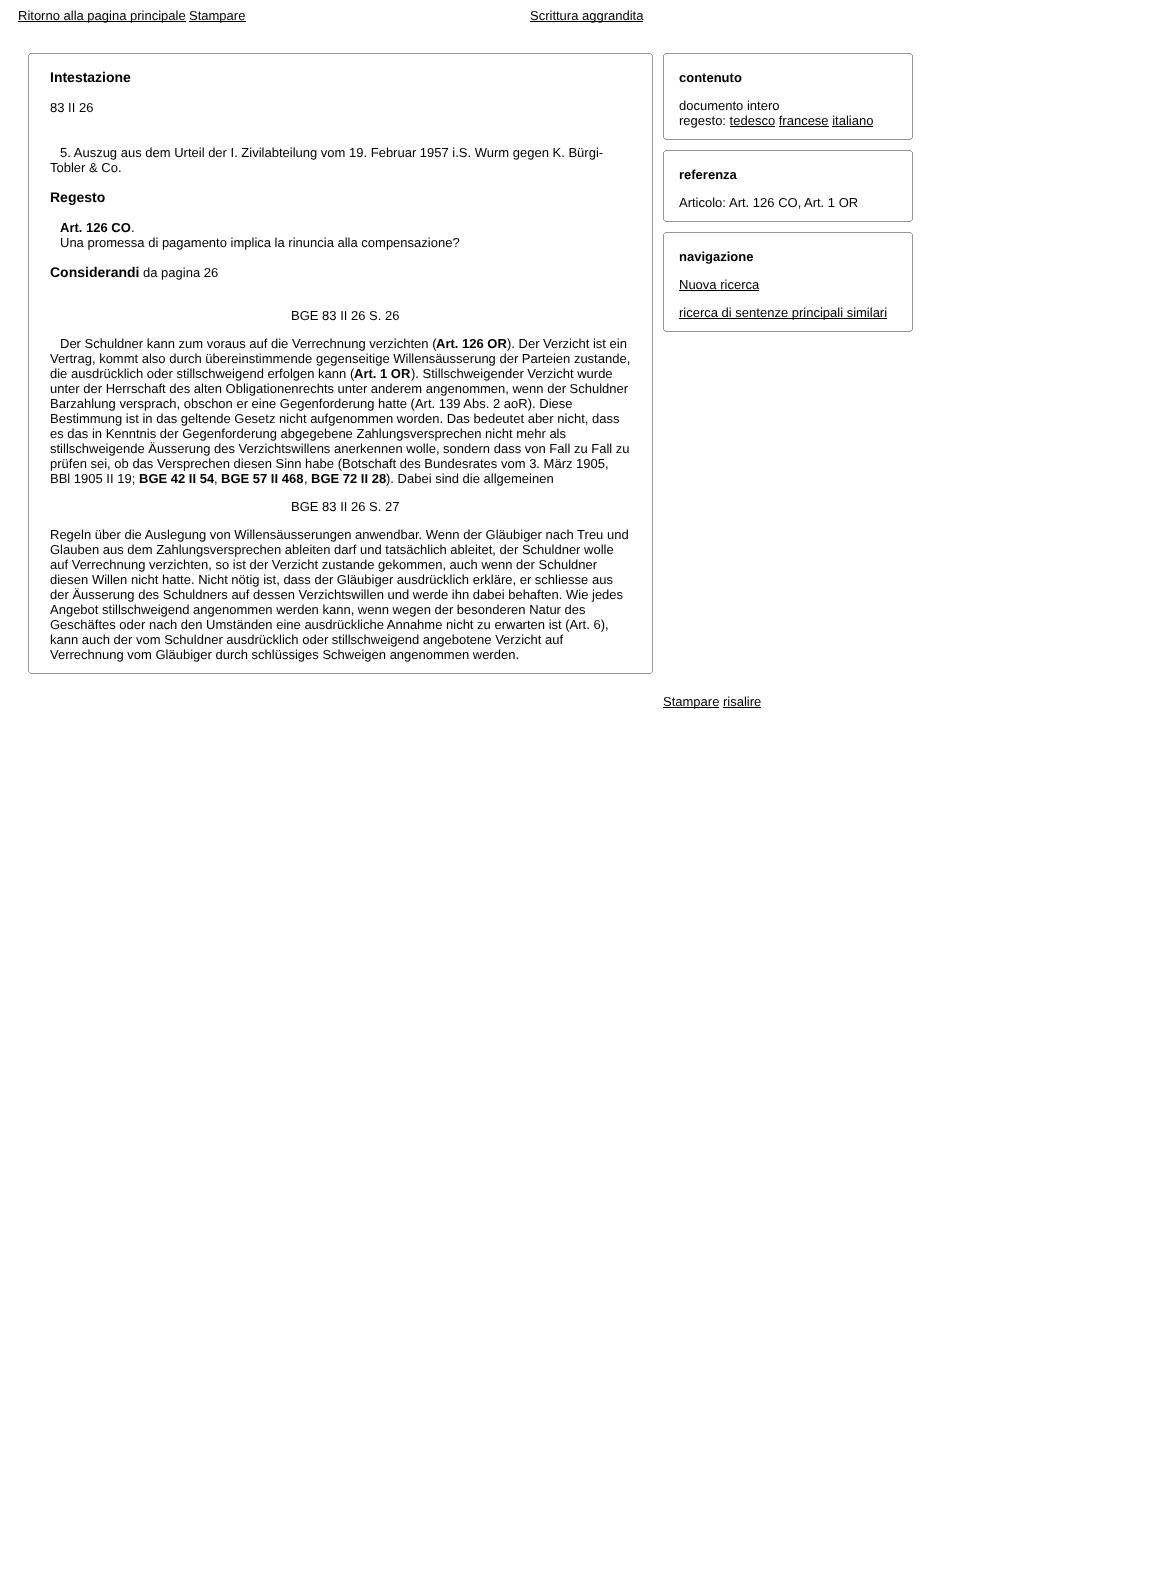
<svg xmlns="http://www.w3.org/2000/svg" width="1175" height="1588">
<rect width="100%" height="100%" fill="#fff"/>
<rect x="18" y="21" width="168" height="1" fill="#000"/>
<text x="18" y="20" style="font-family:Liberation Sans;font-size:13px;fill:#000">Ritorno alla pagina principale</text>
<rect x="189" y="21" width="57" height="1" fill="#000"/>
<text x="189" y="20" style="font-family:Liberation Sans;font-size:13px;fill:#000">Stampare</text>
<rect x="530" y="21" width="113" height="1" fill="#000"/>
<text x="530" y="20" style="font-family:Liberation Sans;font-size:13px;fill:#000">Scrittura aggrandita</text>
<rect x="30" y="53" width="621" height="1" fill="#999"/>
<rect x="651" y="54" width="1" height="1" fill="#999"/>
<rect x="29" y="54" width="1" height="1" fill="#999"/>
<rect x="652" y="55" width="1" height="617" fill="#999"/>
<rect x="28" y="55" width="1" height="617" fill="#999"/>
<text x="50" y="82" style="font-family:Liberation Sans;font-size:14px;font-weight:bold;fill:#000">Intestazione</text>
<text x="50" y="112" style="font-family:Liberation Sans;font-size:13px;fill:#000">83 II 26</text>
<text x="60" y="157" style="font-family:Liberation Sans;font-size:13px;fill:#000">5. Auszug aus dem Urteil der I. Zivilabteilung vom 19. Februar 1957 i.S. Wurm gegen K. Bürgi-</text>
<text x="50" y="172" style="font-family:Liberation Sans;font-size:13px;fill:#000">Tobler &amp; Co.</text>
<text x="50" y="202" style="font-family:Liberation Sans;font-size:14px;font-weight:bold;fill:#000">Regesto</text>
<text x="60" y="232" style="font-family:Liberation Sans;font-size:13px;font-weight:bold;fill:#000">Art. 126 CO</text>
<text x="131" y="232" style="font-family:Liberation Sans;font-size:13px;fill:#000">.</text>
<text x="60" y="247" style="font-family:Liberation Sans;font-size:13px;fill:#000">Una promessa di pagamento implica la rinuncia alla compensazione?</text>
<text x="50" y="277" style="font-family:Liberation Sans;font-size:14px;font-weight:bold;fill:#000">Considerandi</text>
<text x="143" y="277" style="font-family:Liberation Sans;font-size:13px;fill:#000">da pagina 26</text>
<text x="291" y="320" style="font-family:Liberation Sans;font-size:13px;fill:#000">BGE 83 II 26 S. 26</text>
<text x="60" y="348" style="font-family:Liberation Sans;font-size:13px;fill:#000">Der Schuldner kann zum voraus auf die Verrechnung verzichten (</text>
<text x="436" y="348" style="font-family:Liberation Sans;font-size:13px;font-weight:bold;fill:#000">Art. 126 OR</text>
<text x="507" y="348" style="font-family:Liberation Sans;font-size:13px;fill:#000">). Der Verzicht ist ein</text>
<text x="50" y="363" style="font-family:Liberation Sans;font-size:13px;fill:#000">Vertrag, kommt also durch übereinstimmende gegenseitige Willensäusserung der Parteien zustande,</text>
<text x="50" y="378" style="font-family:Liberation Sans;font-size:13px;fill:#000">die ausdrücklich oder stillschweigend erfolgen kann (</text>
<text x="354" y="378" style="font-family:Liberation Sans;font-size:13px;font-weight:bold;fill:#000">Art. 1 OR</text>
<text x="411" y="378" style="font-family:Liberation Sans;font-size:13px;fill:#000">). Stillschweigender Verzicht wurde</text>
<text x="50" y="393" style="font-family:Liberation Sans;font-size:13px;fill:#000">unter der Herrschaft des alten Obligationenrechts unter anderem angenommen, wenn der Schuldner</text>
<text x="50" y="408" style="font-family:Liberation Sans;font-size:13px;fill:#000">Barzahlung versprach, obschon er eine Gegenforderung hatte (Art. 139 Abs. 2 aoR). Diese</text>
<text x="50" y="423" style="font-family:Liberation Sans;font-size:13px;fill:#000">Bestimmung ist in das geltende Gesetz nicht aufgenommen worden. Das bedeutet aber nicht, dass</text>
<text x="50" y="438" style="font-family:Liberation Sans;font-size:13px;fill:#000">es das in Kenntnis der Gegenforderung abgegebene Zahlungsversprechen nicht mehr als</text>
<text x="50" y="453" style="font-family:Liberation Sans;font-size:13px;fill:#000">stillschweigende Äusserung des Verzichtswillens anerkennen wolle, sondern dass von Fall zu Fall zu</text>
<text x="50" y="468" style="font-family:Liberation Sans;font-size:13px;fill:#000">prüfen sei, ob das Versprechen diesen Sinn habe (Botschaft des Bundesrates vom 3. März 1905,</text>
<text x="50" y="483" style="font-family:Liberation Sans;font-size:13px;fill:#000">BBl 1905 II 19;</text>
<text x="139" y="483" style="font-family:Liberation Sans;font-size:13px;font-weight:bold;fill:#000">BGE 42 II 54</text>
<text x="214" y="483" style="font-family:Liberation Sans;font-size:13px;fill:#000">,</text>
<text x="221" y="483" style="font-family:Liberation Sans;font-size:13px;font-weight:bold;fill:#000">BGE 57 II 468</text>
<text x="304" y="483" style="font-family:Liberation Sans;font-size:13px;fill:#000">,</text>
<text x="311" y="483" style="font-family:Liberation Sans;font-size:13px;font-weight:bold;fill:#000">BGE 72 II 28</text>
<text x="386" y="483" style="font-family:Liberation Sans;font-size:13px;fill:#000">). Dabei sind die allgemeinen</text>
<text x="291" y="511" style="font-family:Liberation Sans;font-size:13px;fill:#000">BGE 83 II 26 S. 27</text>
<text x="50" y="539" style="font-family:Liberation Sans;font-size:13px;fill:#000">Regeln über die Auslegung von Willensäusserungen anwendbar. Wenn der Gläubiger nach Treu und</text>
<text x="50" y="554" style="font-family:Liberation Sans;font-size:13px;fill:#000">Glauben aus dem Zahlungsversprechen ableiten darf und tatsächlich ableitet, der Schuldner wolle</text>
<text x="50" y="569" style="font-family:Liberation Sans;font-size:13px;fill:#000">auf Verrechnung verzichten, so ist der Verzicht zustande gekommen, auch wenn der Schuldner</text>
<text x="50" y="584" style="font-family:Liberation Sans;font-size:13px;fill:#000">diesen Willen nicht hatte. Nicht nötig ist, dass der Gläubiger ausdrücklich erkläre, er schliesse aus</text>
<text x="50" y="599" style="font-family:Liberation Sans;font-size:13px;fill:#000">der Äusserung des Schuldners auf dessen Verzichtswillen und werde ihn dabei behaften. Wie jedes</text>
<text x="50" y="614" style="font-family:Liberation Sans;font-size:13px;fill:#000">Angebot stillschweigend angenommen werden kann, wenn wegen der besonderen Natur des</text>
<text x="50" y="629" style="font-family:Liberation Sans;font-size:13px;fill:#000">Geschäftes oder nach den Umständen eine ausdrückliche Annahme nicht zu erwarten ist (Art. 6),</text>
<text x="50" y="644" style="font-family:Liberation Sans;font-size:13px;fill:#000">kann auch der vom Schuldner ausdrücklich oder stillschweigend angebotene Verzicht auf</text>
<text x="50" y="659" style="font-family:Liberation Sans;font-size:13px;fill:#000">Verrechnung vom Gläubiger durch schlüssiges Schweigen angenommen werden.</text>
<rect x="651" y="672" width="1" height="1" fill="#999"/>
<rect x="29" y="672" width="1" height="1" fill="#999"/>
<rect x="30" y="673" width="621" height="1" fill="#999"/>
<rect x="665" y="53" width="246" height="1" fill="#999"/>
<rect x="911" y="54" width="1" height="1" fill="#999"/>
<rect x="664" y="54" width="1" height="1" fill="#999"/>
<rect x="912" y="55" width="1" height="83" fill="#999"/>
<rect x="663" y="55" width="1" height="83" fill="#999"/>
<text x="679" y="82" style="font-family:Liberation Sans;font-size:13px;font-weight:bold;fill:#000">contenuto</text>
<text x="679" y="110" style="font-family:Liberation Sans;font-size:13px;fill:#000">documento intero</text>
<text x="679" y="125" style="font-family:Liberation Sans;font-size:13px;fill:#000">regesto: tedesco francese italiano</text>
<rect x="730" y="126" width="45" height="1" fill="#000"/>
<rect x="779" y="126" width="50" height="1" fill="#000"/>
<rect x="832" y="126" width="41" height="1" fill="#000"/>
<rect x="911" y="138" width="1" height="1" fill="#999"/>
<rect x="664" y="138" width="1" height="1" fill="#999"/>
<rect x="665" y="139" width="246" height="1" fill="#999"/>
<rect x="665" y="150" width="246" height="1" fill="#999"/>
<rect x="911" y="151" width="1" height="1" fill="#999"/>
<rect x="664" y="151" width="1" height="1" fill="#999"/>
<rect x="912" y="152" width="1" height="68" fill="#999"/>
<rect x="663" y="152" width="1" height="68" fill="#999"/>
<text x="679" y="179" style="font-family:Liberation Sans;font-size:13px;font-weight:bold;fill:#000">referenza</text>
<text x="679" y="207" style="font-family:Liberation Sans;font-size:13px;fill:#000">Articolo:</text>
<text x="729" y="207" style="font-family:Liberation Sans;font-size:13px;fill:#000">Art. 126 CO,</text>
<text x="804" y="207" style="font-family:Liberation Sans;font-size:13px;fill:#000">Art. 1 OR</text>
<rect x="911" y="220" width="1" height="1" fill="#999"/>
<rect x="664" y="220" width="1" height="1" fill="#999"/>
<rect x="665" y="221" width="246" height="1" fill="#999"/>
<rect x="665" y="232" width="246" height="1" fill="#999"/>
<rect x="911" y="233" width="1" height="1" fill="#999"/>
<rect x="664" y="233" width="1" height="1" fill="#999"/>
<rect x="912" y="234" width="1" height="96" fill="#999"/>
<rect x="663" y="234" width="1" height="96" fill="#999"/>
<text x="679" y="261" style="font-family:Liberation Sans;font-size:13px;font-weight:bold;fill:#000">navigazione</text>
<text x="679" y="289" style="font-family:Liberation Sans;font-size:13px;fill:#000">Nuova ricerca</text>
<rect x="679" y="290" width="80" height="1" fill="#000"/>
<rect x="679" y="318" width="208" height="1" fill="#000"/>
<text x="679" y="317" style="font-family:Liberation Sans;font-size:13px;fill:#000">ricerca di sentenze principali similari</text>
<rect x="911" y="330" width="1" height="1" fill="#999"/>
<rect x="664" y="330" width="1" height="1" fill="#999"/>
<rect x="665" y="331" width="246" height="1" fill="#999"/>
<rect x="663" y="707" width="56" height="1" fill="#000"/>
<text x="663" y="706" style="font-family:Liberation Sans;font-size:13px;fill:#000">Stampare risalire</text>
<rect x="723" y="707" width="38" height="1" fill="#000"/>
</svg>
